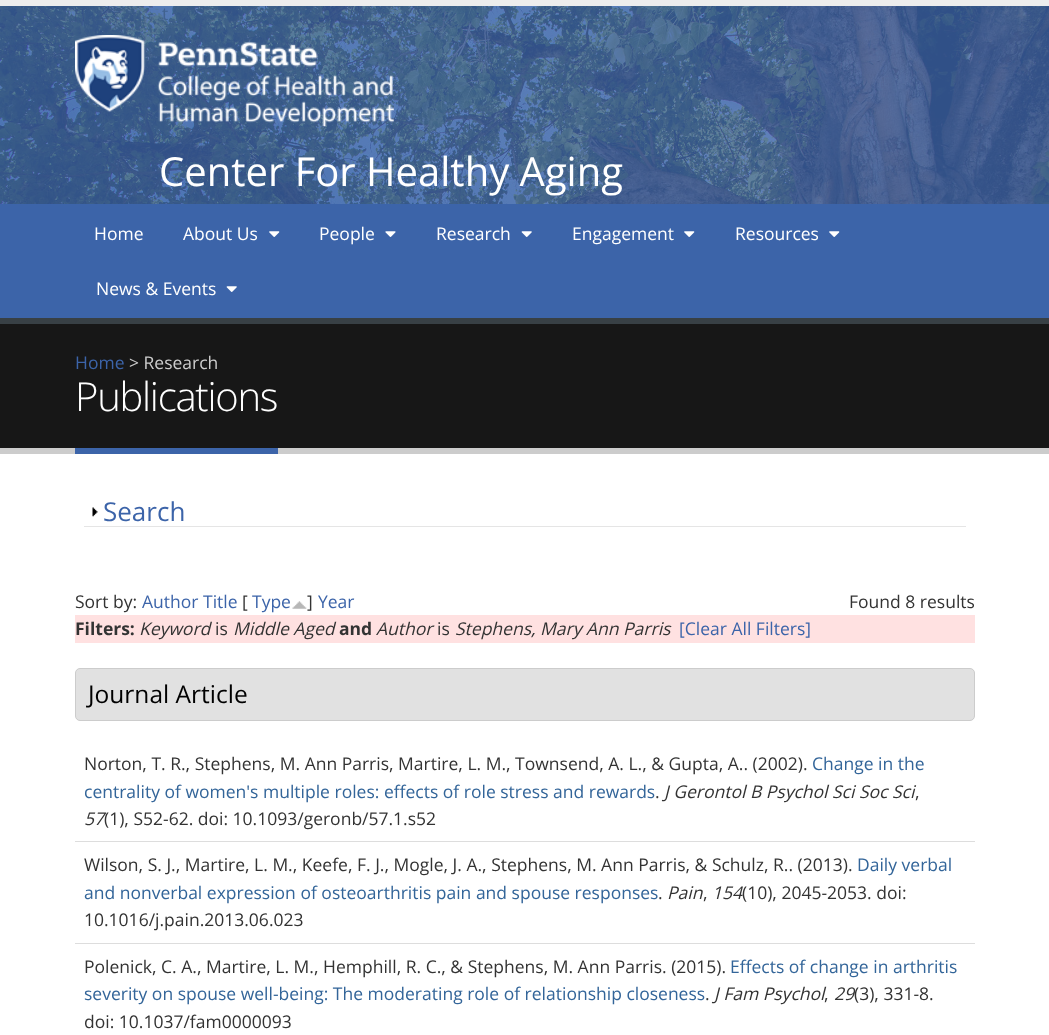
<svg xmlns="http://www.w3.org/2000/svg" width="1049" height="1035">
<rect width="100%" height="100%" fill="#fff"/>
<image x="0" y="6" width="1049" height="198" href="media/1.png"/>
<text x="162" y="20" style="font-family:Open Sans;font-size:17.5px;fill:#41628f">t</text>
<rect width="1049" height="6" fill="#ededed"/>
<image x="75" y="35" width="319" height="92" href="media/2.png"/>
<text x="159" y="186" style="font-family:Open Sans;font-size:40px;fill:#fff">Center For Healthy Aging</text>
<rect y="204" width="1049" height="114" fill="#3c64a9"/>
<text x="94" y="240" style="font-family:Open Sans;font-size:17.5px;fill:#fff">Home</text>
<text x="183" y="240" style="font-family:Open Sans;font-size:17.5px;fill:#fff">About Us</text>
<image x="269" y="231" width="11" height="6" href="media/3.png"/>
<text x="319" y="240" style="font-family:Open Sans;font-size:17.5px;fill:#fff">People</text>
<image x="385" y="231" width="11" height="6" href="media/4.png"/>
<text x="436" y="240" style="font-family:Open Sans;font-size:17.5px;fill:#fff">Research</text>
<image x="521" y="231" width="11" height="6" href="media/5.png"/>
<text x="572" y="240" style="font-family:Open Sans;font-size:17.5px;fill:#fff">Engagement</text>
<image x="684" y="231" width="11" height="6" href="media/3.png"/>
<text x="735" y="240" style="font-family:Open Sans;font-size:17.5px;fill:#fff">Resources</text>
<image x="829" y="231" width="11" height="6" href="media/3.png"/>
<text x="96" y="295" style="font-family:Open Sans;font-size:17.5px;fill:#fff">News &amp; Events</text>
<image x="226" y="286" width="11" height="6" href="media/5.png"/>
<rect y="324" width="1049" height="124" fill="#171717"/>
<rect y="318" width="1049" height="6" fill="#384045"/>
<rect y="448" width="1049" height="6" fill="#ccc"/>
<text x="75" y="369" style="font-family:Open Sans;font-size:17.5px;fill:#3c64a9">Home</text>
<text x="129" y="369" style="font-family:Open Sans;font-size:17.5px;fill:#ccc">&gt; Research</text>
<rect x="75" y="448" width="203" height="6" fill="#3c64a9"/>
<text x="75" y="411" style="font-family:Open Sans;font-size:40px;font-weight:300;letter-spacing:-1.25px;fill:#fff">Publications</text>
<rect x="84" y="526" width="882" height="1" fill="#e5e5e5"/>
<image x="92" y="507" width="6" height="10" href="media/6.png"/>
<text x="103" y="521" style="font-family:Open Sans;font-size:26px;fill:#3c64a9">Search</text>
<text x="75" y="608" style="font-family:Open Sans;font-size:17.5px;fill:#333">Sort by:</text>
<text x="142" y="608" style="font-family:Open Sans;font-size:17.5px;fill:#3c64a9">Author Title</text>
<text x="242" y="608" style="font-family:Open Sans;font-size:17.5px;fill:#333">[</text>
<text x="252" y="608" style="font-family:Open Sans;font-size:17.5px;fill:#3c64a9">Type</text>
<image x="292" y="601" width="15" height="8" href="media/7.png"/>
<text x="307" y="608" style="font-family:Open Sans;font-size:17.5px;fill:#333">]</text>
<text x="318" y="608" style="font-family:Open Sans;font-size:17.5px;fill:#3c64a9">Year</text>
<text x="849" y="608" style="font-family:Open Sans;font-size:17.5px;fill:#333">Found 8 results</text>
<rect x="75" y="615" width="900" height="28" fill="#ffe1e1"/>
<text x="75" y="635" style="font-family:Open Sans;font-size:17.5px;font-weight:bold;fill:#333">Filters:</text>
<text x="139" y="635" style="font-family:Open Sans;font-size:17.5px;font-style:italic;fill:#333">Keyword</text>
<text x="215" y="635" style="font-family:Open Sans;font-size:17.5px;fill:#333">is</text>
<text x="233" y="635" style="font-family:Open Sans;font-size:17.5px;font-style:italic;fill:#333">Middle Aged</text>
<text x="339" y="635" style="font-family:Open Sans;font-size:17.5px;font-weight:bold;fill:#333">and</text>
<text x="376" y="635" style="font-family:Open Sans;font-size:17.5px;font-style:italic;fill:#333">Author</text>
<text x="437" y="635" style="font-family:Open Sans;font-size:17.5px;fill:#333">is</text>
<text x="455" y="635" style="font-family:Open Sans;font-size:17.5px;font-style:italic;fill:#333">Stephens, Mary Ann Parris</text>
<text x="679" y="635" style="font-family:Open Sans;font-size:17.5px;fill:#3c64a9">[Clear All Filters]</text>
<rect x="75.5" y="668.5" width="899" height="52" rx="4.5" fill="#e1e1e1" stroke="#ccc"/>
<text x="88" y="703" style="font-family:Open Sans;font-size:24.5px;fill:#000">Journal Article</text>
<rect x="75" y="841" width="900" height="1" fill="#ddd"/>
<text x="84" y="770" style="font-family:Open Sans;font-size:17.5px;fill:#333">Norton, T. R., Stephens, M. Ann Parris, Martire, L. M., Townsend, A. L., &amp; Gupta, A.. (2002).</text>
<text x="812" y="770" style="font-family:Open Sans;font-size:17.5px;fill:#336599">Change in the</text>
<text x="84" y="798" style="font-family:Open Sans;font-size:17.5px;fill:#336599">centrality of women's multiple roles: effects of role stress and rewards</text>
<text x="664" y="798" style="font-family:Open Sans;font-size:17.5px;font-style:italic;fill:#333">J Gerontol B Psychol Sci Soc Sci</text>
<text x="655" y="798" style="font-family:Open Sans;font-size:17.5px;fill:#333">.</text>
<text x="915" y="798" style="font-family:Open Sans;font-size:17.5px;fill:#333">,</text>
<text x="84" y="825" style="font-family:Open Sans;font-size:17.5px;font-style:italic;fill:#333">57</text>
<text x="104" y="825" style="font-family:Open Sans;font-size:17.5px;fill:#333">(1), S52-62. doi: 10.1093/geronb/57.1.s52</text>
<rect x="75" y="943" width="900" height="1" fill="#ddd"/>
<text x="84" y="871" style="font-family:Open Sans;font-size:17.5px;fill:#333">Wilson, S. J., Martire, L. M., Keefe, F. J., Mogle, J. A., Stephens, M. Ann Parris, &amp; Schulz, R.. (2013).</text>
<text x="857" y="871" style="font-family:Open Sans;font-size:17.5px;fill:#336599">Daily verbal</text>
<text x="84" y="899" style="font-family:Open Sans;font-size:17.5px;fill:#336599">and nonverbal expression of osteoarthritis pain and spouse responses</text>
<text x="658" y="899" style="font-family:Open Sans;font-size:17.5px;fill:#333">.</text>
<text x="667" y="899" style="font-family:Open Sans;font-size:17.5px;font-style:italic;fill:#333">Pain</text>
<text x="703" y="899" style="font-family:Open Sans;font-size:17.5px;fill:#333">,</text>
<text x="712" y="899" style="font-family:Open Sans;font-size:17.5px;font-style:italic;fill:#333">154</text>
<text x="742" y="899" style="font-family:Open Sans;font-size:17.5px;fill:#333">(10), 2045-2053. doi:</text>
<text x="84" y="926" style="font-family:Open Sans;font-size:17.5px;fill:#333">10.1016/j.pain.2013.06.023</text>
<text x="84" y="973" style="font-family:Open Sans;font-size:17.5px;fill:#333">Polenick, C. A., Martire, L. M., Hemphill, R. C., &amp; Stephens, M. Ann Parris. (2015).</text>
<text x="730" y="973" style="font-family:Open Sans;font-size:17.5px;fill:#336599">Effects of change in arthritis</text>
<text x="84" y="1000" style="font-family:Open Sans;font-size:17.5px;fill:#336599">severity on spouse well-being: The moderating role of relationship closeness</text>
<text x="714" y="1000" style="font-family:Open Sans;font-size:17.5px;font-style:italic;fill:#333">J Fam Psychol</text>
<text x="834" y="1000" style="font-family:Open Sans;font-size:17.5px;font-style:italic;fill:#333">29</text>
<text x="854" y="1000" style="font-family:Open Sans;font-size:17.5px;fill:#333">(3), 331-8.</text>
<text x="705" y="1000" style="font-family:Open Sans;font-size:17.5px;fill:#333">.</text>
<text x="824" y="1000" style="font-family:Open Sans;font-size:17.5px;fill:#333">,</text>
<text x="84" y="1028" style="font-family:Open Sans;font-size:17.5px;fill:#333">doi: 10.1037/fam0000093</text>
</svg>
